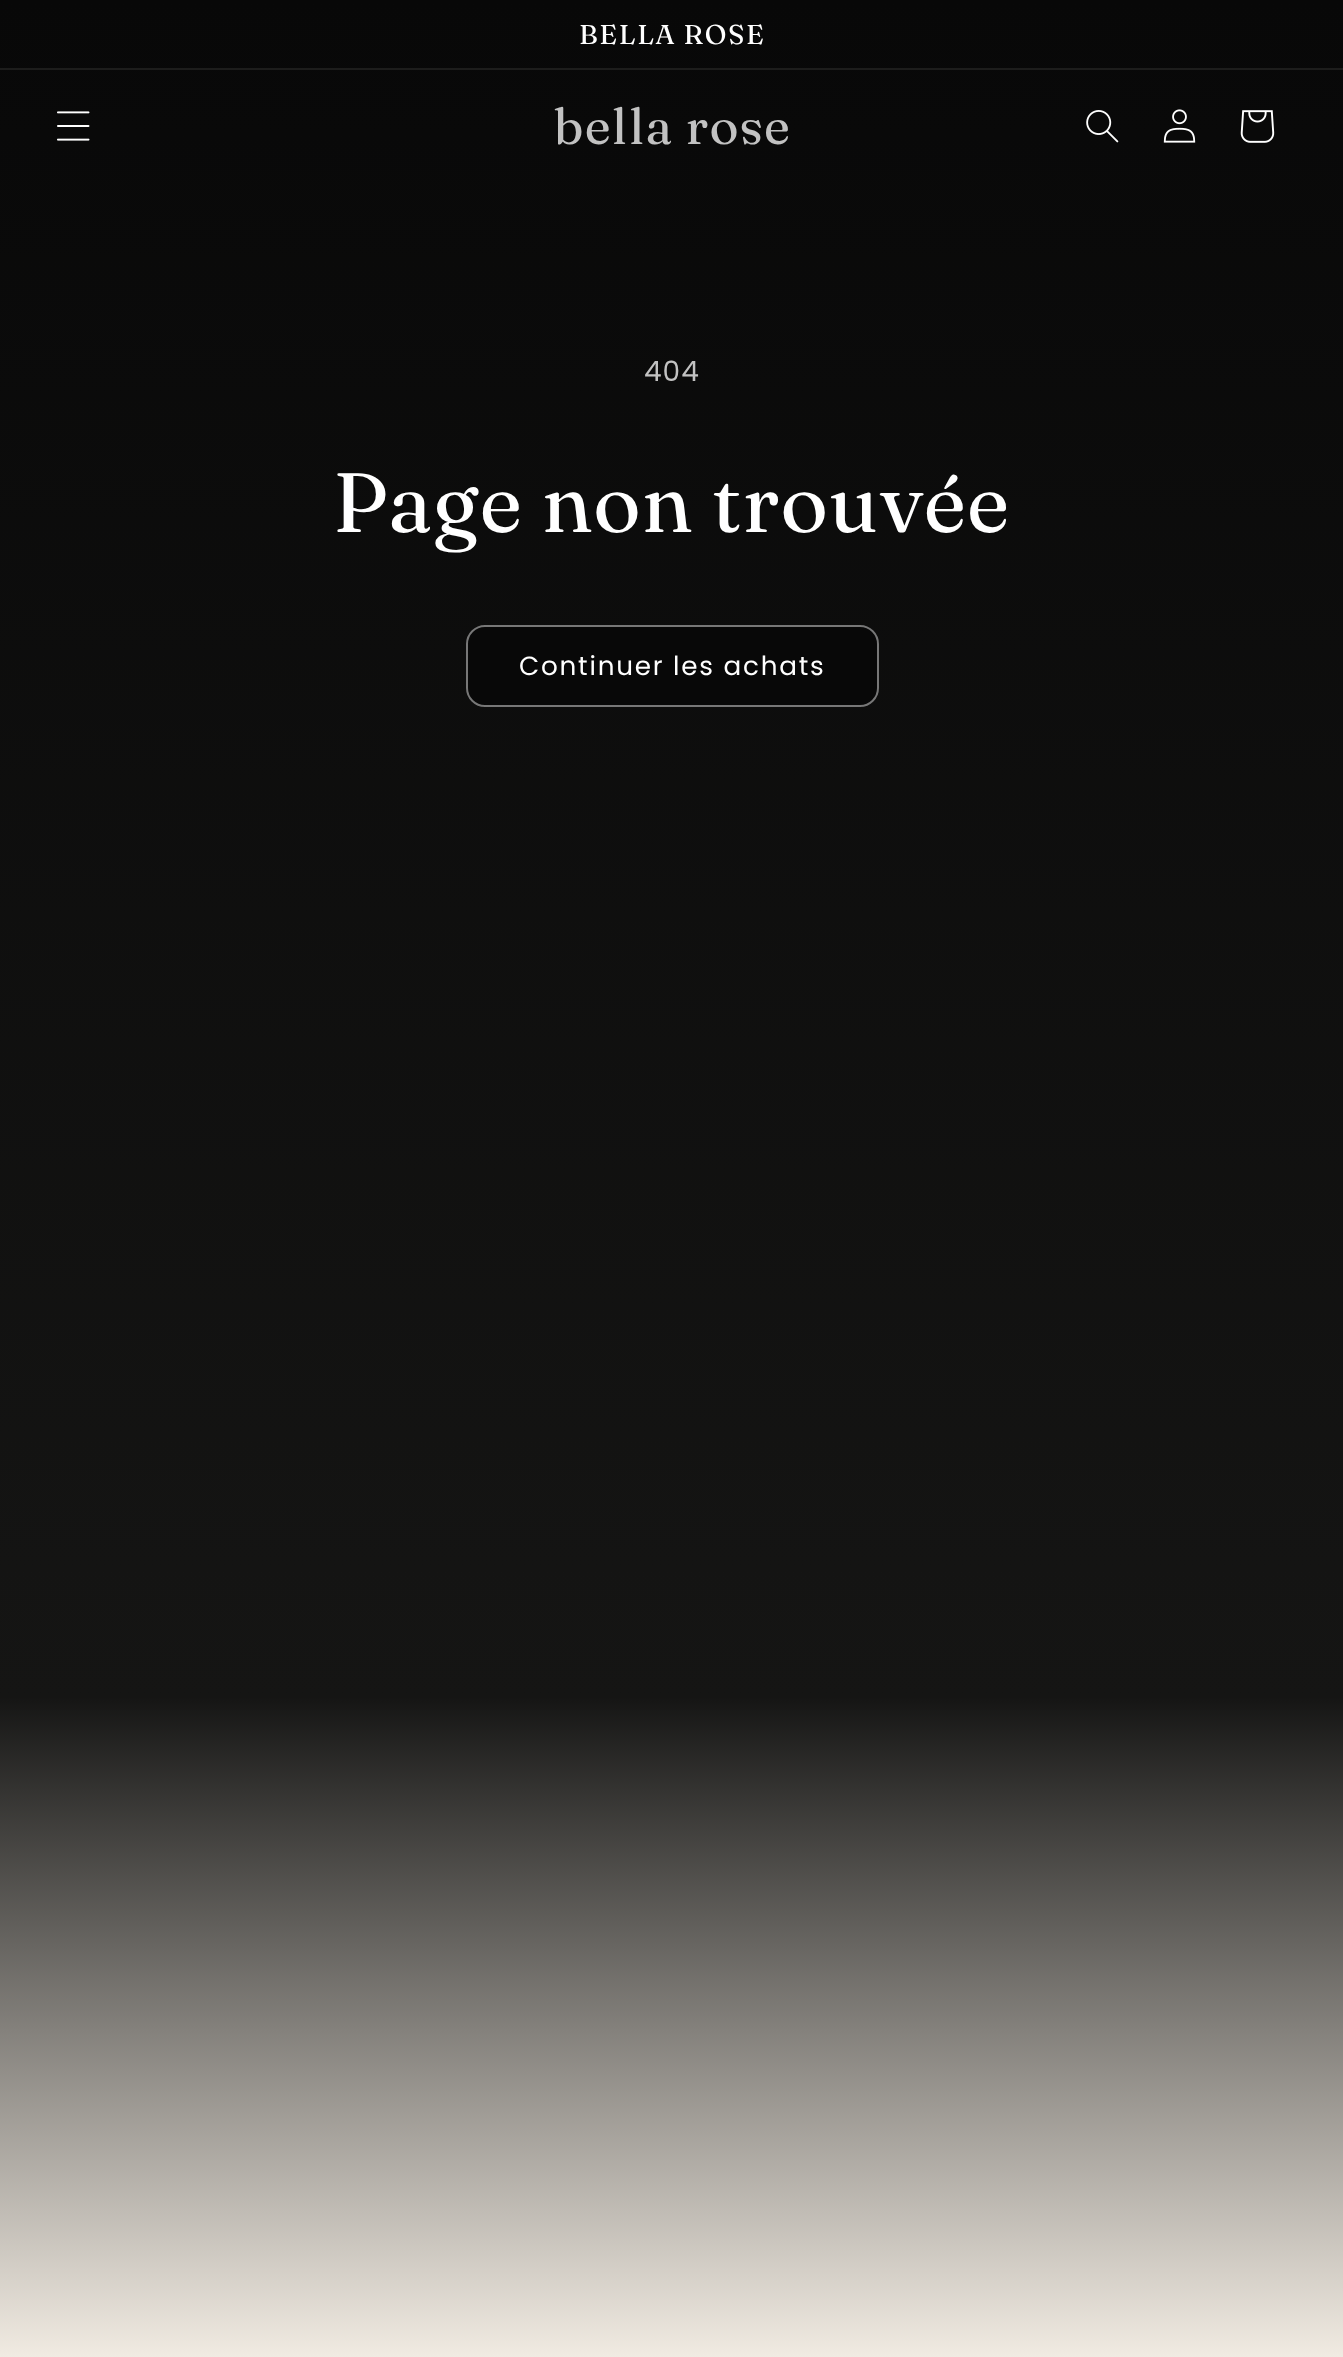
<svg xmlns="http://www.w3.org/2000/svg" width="1343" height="2357">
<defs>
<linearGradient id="g1" gradientUnits="userSpaceOnUse" x1="672" y1="0" x2="672" y2="2357"><stop offset="0" stop-color="#080808"/><stop offset="0.72" stop-color="#151514"/><stop offset="1" stop-color="#f1ebe2"/></linearGradient>
</defs>
<rect width="100%" height="100%" fill="#fff"/>
<rect width="1343" height="2357" fill="url(#g1)"/>
<rect y="68" width="1343" height="2" fill="#1d1d1c"/>
<text x="579" y="44" word-spacing="-1" style="font-family:'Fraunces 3';font-size:27.25px;letter-spacing:1.75px;fill:#fff">BELLA ROSE</text>
<image x="57" y="111" width="33" height="30" href="media/1.png"/>
<text x="554" y="144" style="font-family:'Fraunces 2';font-size:50.5px;letter-spacing:1.25px;fill:#c2c2c2">bella rose</text>
<image x="1086" y="110" width="33" height="33" href="media/2.png"/>
<image x="1163" y="109" width="33" height="34" href="media/3.png"/>
<image x="1240" y="110" width="35" height="33" href="media/4.png"/>
<text x="644" y="381" style="font-family:Poppins;font-size:28px;letter-spacing:1px;fill:#c2c2c2">404</text>
<text x="333" y="532" style="font-family:Fraunces;font-size:84px;letter-spacing:1.25px;fill:#fff">Page non trouvée</text>
<rect x="466" y="625" width="413" height="82" rx="19" fill="#080808"/>
<rect x="467" y="626" width="411" height="80" rx="18" fill="none" stroke="#777" stroke-width="2"/>
<text x="519" y="675" style="font-family:Poppins;font-size:26.25px;letter-spacing:1.75px;fill:#fff">Continuer les achats</text>
</svg>
